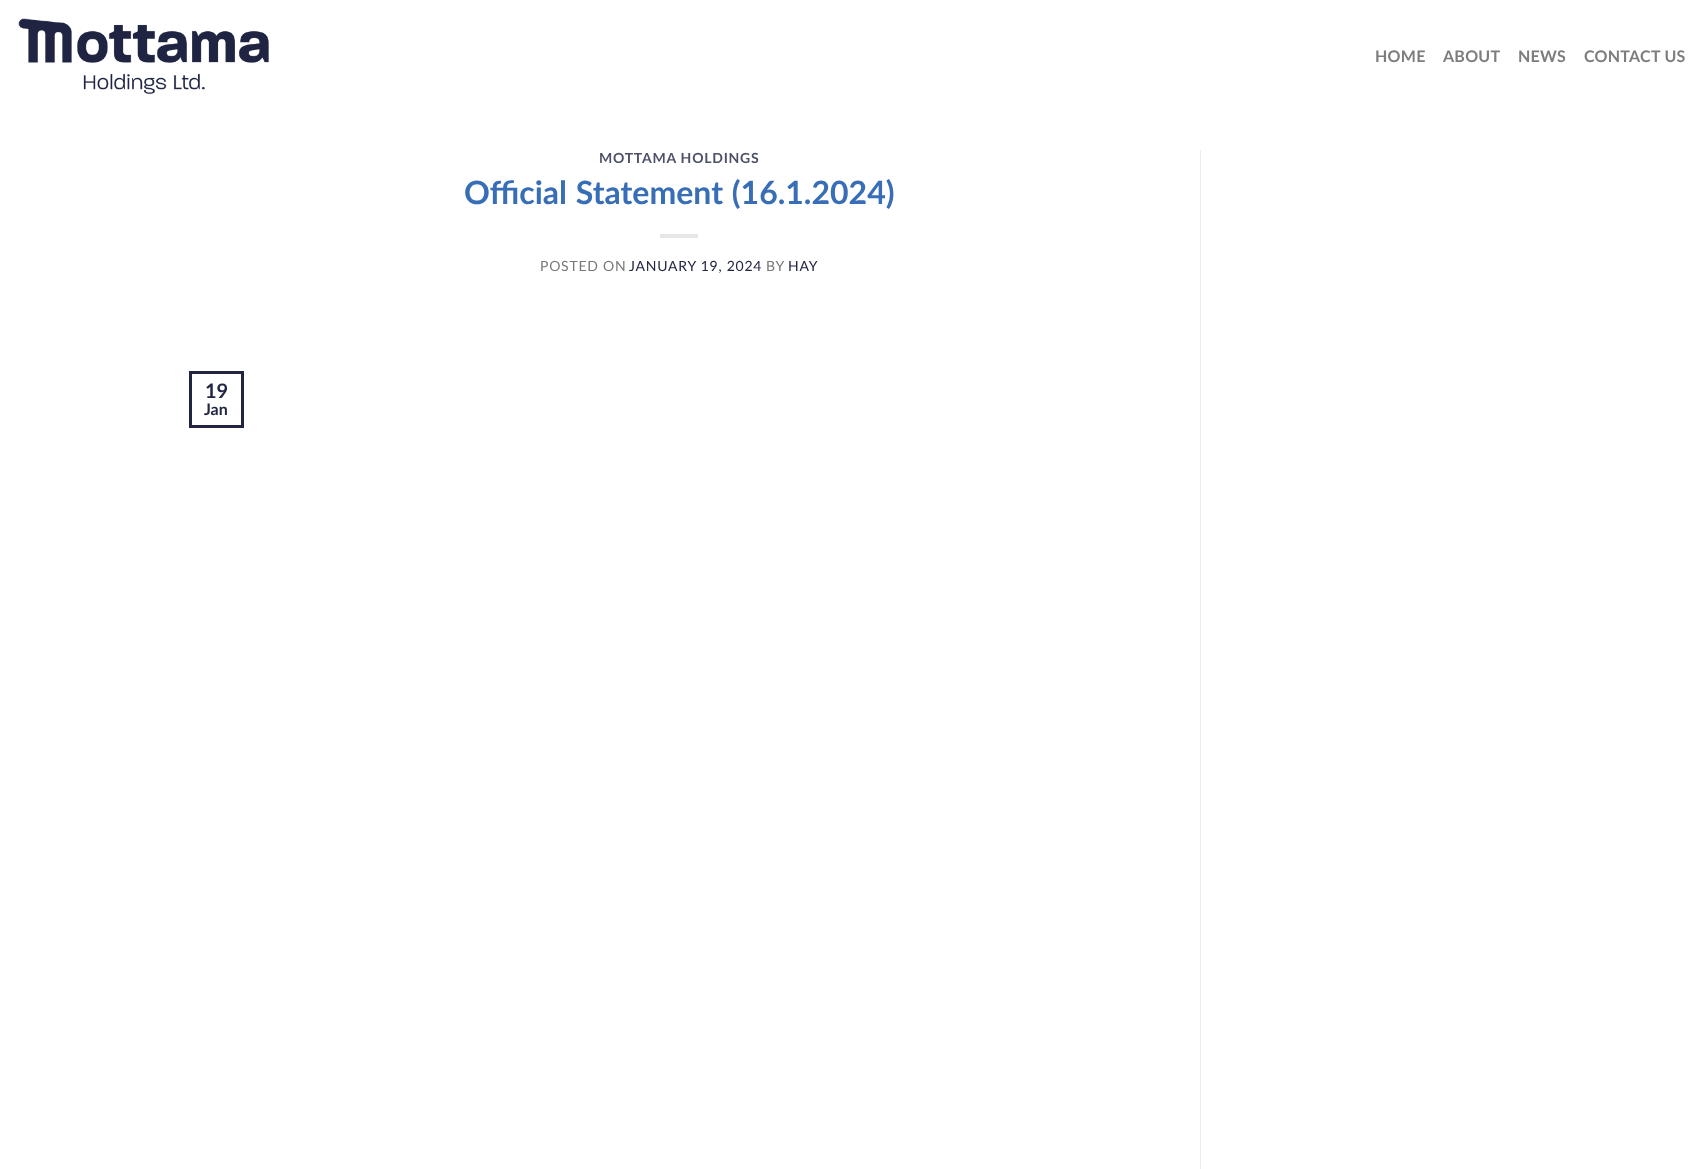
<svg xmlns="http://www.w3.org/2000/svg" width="1705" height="1169">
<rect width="100%" height="100%" fill="#fff"/>
<image x="18" y="18" width="251" height="76" href="media/1.png"/>
<text x="1375" y="62" style="font-family:Lato;font-size:16px;font-weight:bold;letter-spacing:0.25px;fill:#7d7d7d">HOME</text>
<text x="1443" y="62" style="font-family:Lato;font-size:16px;font-weight:bold;letter-spacing:0.25px;fill:#7d7d7d">ABOUT</text>
<text x="1518" y="62" style="font-family:Lato;font-size:16px;font-weight:bold;letter-spacing:0.25px;fill:#7d7d7d">NEWS</text>
<text x="1584" y="62" style="font-family:Lato;font-size:16px;font-weight:bold;letter-spacing:0.25px;fill:#7d7d7d">CONTACT US</text>
<text x="599" y="163" style="font-family:Lato;font-size:14px;font-weight:bold;letter-spacing:0.75px;fill:#4d5168">MOTTAMA HOLDINGS</text>
<text x="464" y="204" word-spacing="1" style="font-family:Lato;font-size:32px;font-weight:bold;fill:#376eb6">Official Statement (16.1.2024)</text>
<rect x="660" y="234" width="38" height="4" fill="#e6e6e6"/>
<text x="540" y="271" style="font-family:Lato;font-size:14px;letter-spacing:0.75px;fill:#777">POSTED ON</text>
<text x="629" y="271" style="font-family:Lato;font-size:14px;letter-spacing:0.75px;fill:#212542">JANUARY 19, 2024</text>
<text x="766" y="271" style="font-family:Lato;font-size:14px;letter-spacing:0.75px;fill:#777">BY</text>
<text x="788" y="271" style="font-family:Lato;font-size:14px;letter-spacing:0.75px;fill:#212542">HAY</text>
<rect x="190.5" y="372.5" width="52" height="54" fill="none" stroke="#212542" stroke-width="3"/>
<text x="205" y="398" style="font-family:Lato;font-size:20px;font-weight:bold;fill:#212542">19</text>
<text x="204" y="415" style="font-family:Lato;font-size:16px;font-weight:bold;fill:#212542">Jan</text>
<rect x="1200" y="150" width="1" height="1019" fill="#ececec"/>
</svg>
